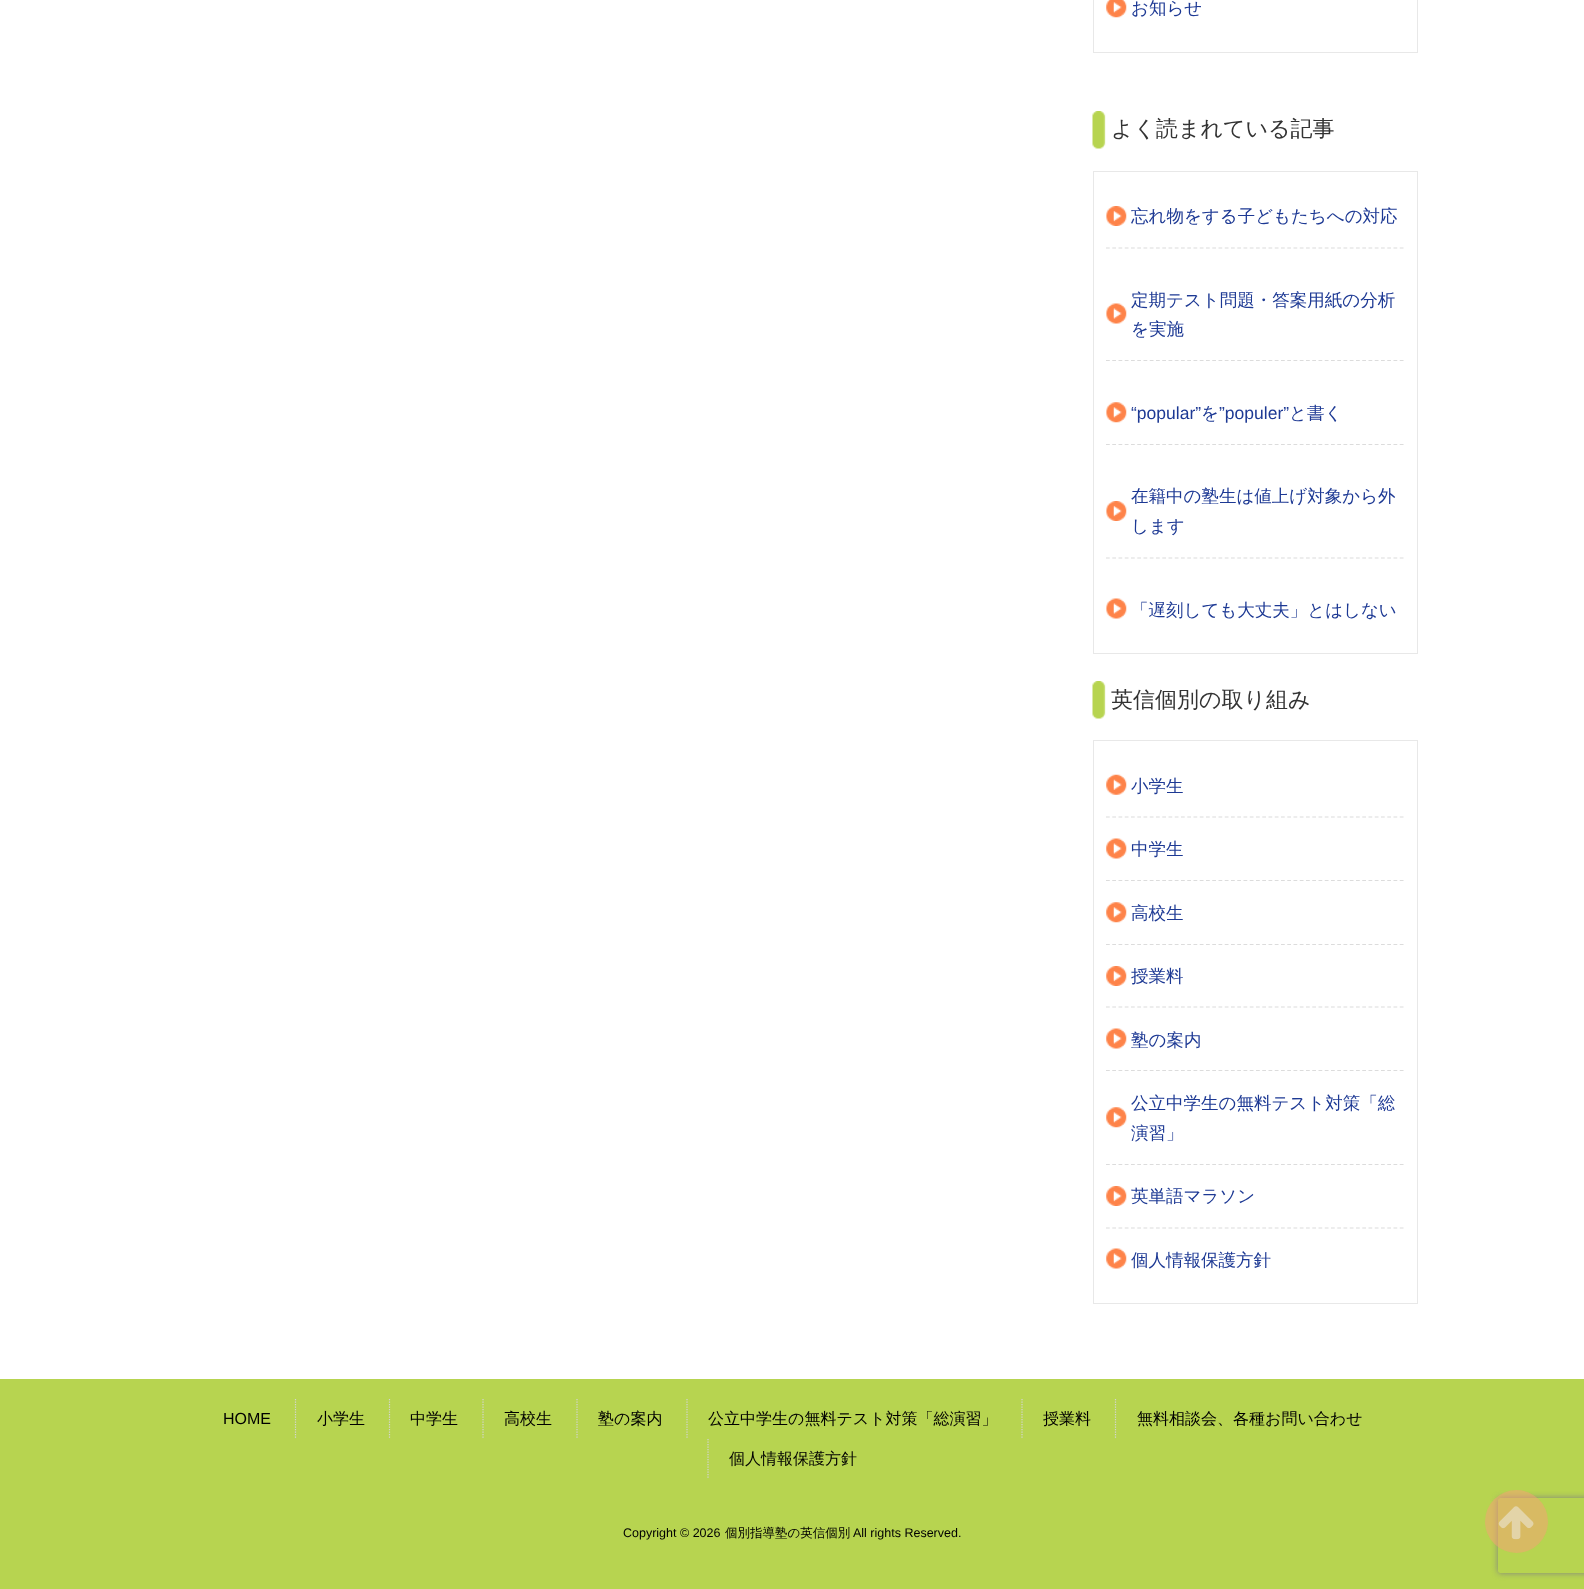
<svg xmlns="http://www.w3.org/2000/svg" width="1584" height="1589">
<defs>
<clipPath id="clip1"><rect x="1106" y="269" width="298" height="92"/></clipPath>
<clipPath id="clip2"><rect x="1106" y="381" width="298" height="64"/></clipPath>
<clipPath id="clip3"><path d="M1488 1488h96v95h-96zm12.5 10h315c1.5 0 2.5 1 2.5 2.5v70c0 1.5-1 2.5-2.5 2.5h-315c-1.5 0-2.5-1-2.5-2.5v-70c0-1.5 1-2.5 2.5-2.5z" clip-rule="evenodd"/></clipPath>
</defs>
<rect width="100%" height="100%" fill="#fff"/>
<rect x="1093.5" y="-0.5" width="324" height="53" fill="none" stroke="#e8e8e8"/>
<image x="1106" y="0" width="21" height="18" href="media/1.png"/>
<text x="1131" y="14" style="font-family:WenQuanYi Zen Hei;font-size:17.5px;font-weight:500;fill:#1d3994">お知らせ</text>
<image x="1092" y="111" width="14" height="38" href="media/2.png"/>
<text x="1111" y="136" style="font-family:WenQuanYi Zen Hei;font-size:22px;font-weight:500;fill:#333">よく読まれている記事</text>
<rect x="1093.5" y="171.5" width="324" height="482" fill="none" stroke="#e8e8e8"/>
<image x="1106" y="206" width="21" height="20" href="media/3.png"/>
<path d="M1106 248h298" fill="none" stroke="#dcdcdc" stroke-width="1.2" stroke-dasharray="3.75 2.5"/>
<text x="1131" y="222" style="font-family:WenQuanYi Zen Hei;font-size:17.5px;font-weight:500;fill:#1d3994">忘れ物をする子どもたちへの対応</text>
<image x="1106" y="303" width="21" height="21" href="media/4.png"/>
<g clip-path="url(#clip1)">
<path d="M1106 360.5h298" fill="none" stroke="#dcdcdc" stroke-width="1.2" stroke-dasharray="3.75 2.5"/>
</g>
<text x="1131" y="306" style="font-family:WenQuanYi Zen Hei;font-size:17.5px;font-weight:500;fill:#1d3994">定期テスト問題・答案用紙の分析</text>
<text x="1131" y="335" style="font-family:WenQuanYi Zen Hei;font-size:17.5px;font-weight:500;fill:#1d3994">を実施</text>
<image x="1106" y="402" width="21" height="21" href="media/5.png"/>
<g clip-path="url(#clip2)">
<path d="M1106 444.5h298" fill="none" stroke="#dcdcdc" stroke-width="1.2" stroke-dasharray="3.75 2.5"/>
</g>
<text x="1131" y="419" style="font-family:Liberation Sans;font-size:17.5px;fill:#1d3994">“popular”</text>
<text x="1201" y="419" style="font-family:WenQuanYi Zen Hei;font-size:17.5px;font-weight:500;fill:#1d3994">を</text>
<text x="1219" y="419" style="font-family:Liberation Sans;font-size:17.5px;fill:#1d3994">”populer”</text>
<text x="1289" y="419" style="font-family:WenQuanYi Zen Hei;font-size:17.5px;font-weight:500;fill:#1d3994">と書く</text>
<image x="1106" y="501" width="21" height="20" href="media/3.png"/>
<path d="M1106 558h298" fill="none" stroke="#dcdcdc" stroke-width="1.2" stroke-dasharray="3.75 2.5"/>
<text x="1131" y="502" style="font-family:WenQuanYi Zen Hei;font-size:17.5px;font-weight:500;fill:#1d3994">在籍中の塾生は値上げ対象から外</text>
<text x="1131" y="532" style="font-family:WenQuanYi Zen Hei;font-size:17.5px;font-weight:500;fill:#1d3994">します</text>
<image x="1106" y="598" width="21" height="21" href="media/4.png"/>
<text x="1131" y="616" style="font-family:WenQuanYi Zen Hei;font-size:17.5px;font-weight:500;fill:#1d3994">「遅刻しても大丈夫」とはしない</text>
<image x="1092" y="681" width="14" height="38" href="media/2.png"/>
<text x="1111" y="707" style="font-family:WenQuanYi Zen Hei;font-size:22px;font-weight:500;fill:#333">英信個別の取り組み</text>
<rect x="1093.5" y="740.5" width="324" height="563" fill="none" stroke="#e8e8e8"/>
<image x="1106" y="774" width="21" height="21" href="media/6.png"/>
<path d="M1106 817h298" fill="none" stroke="#dcdcdc" stroke-width="1.2" stroke-dasharray="3.75 2.5"/>
<text x="1131" y="792" style="font-family:WenQuanYi Zen Hei;font-size:17.5px;font-weight:500;fill:#1d3994">小学生</text>
<image x="1106" y="838" width="21" height="21" href="media/7.png"/>
<path d="M1106 880.5h298" fill="none" stroke="#dcdcdc" stroke-width="1.2" stroke-dasharray="3.75 2.5"/>
<text x="1131" y="855" style="font-family:WenQuanYi Zen Hei;font-size:17.5px;font-weight:500;fill:#1d3994">中学生</text>
<image x="1106" y="902" width="21" height="21" href="media/8.png"/>
<path d="M1106 944.5h298" fill="none" stroke="#dcdcdc" stroke-width="1.2" stroke-dasharray="3.75 2.5"/>
<text x="1131" y="919" style="font-family:WenQuanYi Zen Hei;font-size:17.5px;font-weight:500;fill:#1d3994">高校生</text>
<image x="1106" y="966" width="21" height="20" href="media/9.png"/>
<path d="M1106 1007h298" fill="none" stroke="#dcdcdc" stroke-width="1.2" stroke-dasharray="3.75 2.5"/>
<text x="1131" y="982" style="font-family:WenQuanYi Zen Hei;font-size:17.5px;font-weight:500;fill:#1d3994">授業料</text>
<image x="1106" y="1028" width="21" height="21" href="media/7.png"/>
<path d="M1106 1070.5h298" fill="none" stroke="#dcdcdc" stroke-width="1.2" stroke-dasharray="3.75 2.5"/>
<text x="1131" y="1046" style="font-family:WenQuanYi Zen Hei;font-size:17.5px;font-weight:500;fill:#1d3994">塾の案内</text>
<image x="1106" y="1107" width="21" height="21" href="media/8.png"/>
<path d="M1106 1164.5h298" fill="none" stroke="#dcdcdc" stroke-width="1.2" stroke-dasharray="3.75 2.5"/>
<text x="1131" y="1109" style="font-family:WenQuanYi Zen Hei;font-size:17.5px;font-weight:500;fill:#1d3994">公立中学生の無料テスト対策「総</text>
<text x="1131" y="1139" style="font-family:WenQuanYi Zen Hei;font-size:17.5px;font-weight:500;fill:#1d3994">演習」</text>
<image x="1106" y="1186" width="21" height="20" href="media/9.png"/>
<path d="M1106 1228h298" fill="none" stroke="#dcdcdc" stroke-width="1.2" stroke-dasharray="3.75 2.5"/>
<text x="1131" y="1202" style="font-family:WenQuanYi Zen Hei;font-size:17.5px;font-weight:500;fill:#1d3994">英単語マラソン</text>
<image x="1106" y="1248" width="21" height="21" href="media/7.png"/>
<text x="1131" y="1266" style="font-family:WenQuanYi Zen Hei;font-size:17.5px;font-weight:500;fill:#1d3994">個人情報保護方針</text>
<rect y="1379" width="1584" height="210" fill="#b7d450"/>
<text x="223" y="1424" style="font-family:Liberation Sans;font-size:16px;fill:#000">HOME</text>
<path d="M295.5 1399v40" fill="none" stroke="#d5d5d5" stroke-width="1.2" stroke-dasharray="1.25 1.25"/>
<text x="317" y="1424" style="font-family:WenQuanYi Zen Hei;font-size:16px;font-weight:500;fill:#000">小学生</text>
<path d="M389.5 1399v40" fill="none" stroke="#d5d5d5" stroke-width="1.2" stroke-dasharray="1.25 1.25"/>
<text x="410" y="1424" style="font-family:WenQuanYi Zen Hei;font-size:16px;font-weight:500;fill:#000">中学生</text>
<path d="M483 1399v40" fill="none" stroke="#d5d5d5" stroke-width="1.2" stroke-dasharray="1.25 1.25"/>
<text x="504" y="1424" style="font-family:WenQuanYi Zen Hei;font-size:16px;font-weight:500;fill:#000">高校生</text>
<path d="M577 1399v40" fill="none" stroke="#d5d5d5" stroke-width="1.2" stroke-dasharray="1.25 1.25"/>
<text x="598" y="1424" style="font-family:WenQuanYi Zen Hei;font-size:16px;font-weight:500;fill:#000">塾の案内</text>
<path d="M687 1399v40" fill="none" stroke="#d5d5d5" stroke-width="1.2" stroke-dasharray="1.25 1.25"/>
<text x="708" y="1424" style="font-family:WenQuanYi Zen Hei;font-size:16px;font-weight:500;fill:#000">公立中学生の無料テスト対策「総演習」</text>
<path d="M1022 1399v40" fill="none" stroke="#d5d5d5" stroke-width="1.2" stroke-dasharray="1.25 1.25"/>
<text x="1043" y="1424" style="font-family:WenQuanYi Zen Hei;font-size:16px;font-weight:500;fill:#000">授業料</text>
<path d="M1115.5 1399v40" fill="none" stroke="#d5d5d5" stroke-width="1.2" stroke-dasharray="1.25 1.25"/>
<text x="1137" y="1424" style="font-family:WenQuanYi Zen Hei;font-size:16px;font-weight:500;fill:#000">無料相談会、各種お問い合わせ</text>
<path d="M708 1439v40" fill="none" stroke="#d5d5d5" stroke-width="1.2" stroke-dasharray="1.25 1.25"/>
<text x="729" y="1464" style="font-family:WenQuanYi Zen Hei;font-size:16px;font-weight:500;fill:#000">個人情報保護方針</text>
<text x="623" y="1537" style="font-family:Liberation Sans;font-size:12.5px;fill:#000">Copyright © 2026</text>
<text x="725" y="1537" style="font-family:WenQuanYi Zen Hei;font-size:12.5px;font-weight:500;fill:#000">個別指導塾の英信個別</text>
<text x="853" y="1537" style="font-family:Liberation Sans;font-size:12.5px;fill:#000">All rights Reserved.</text>
<g clip-path="url(#clip3)">
<rect x="1498" y="1498" width="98" height="75" rx="2.5" fill="#808080" filter="blur(3px)"/>
</g>
<circle cx="1516.5" cy="1521.5" r="31.5" fill="#f9a07680"/>
<image x="1498" y="1506" width="36" height="34" href="media/10.png"/>
</svg>
